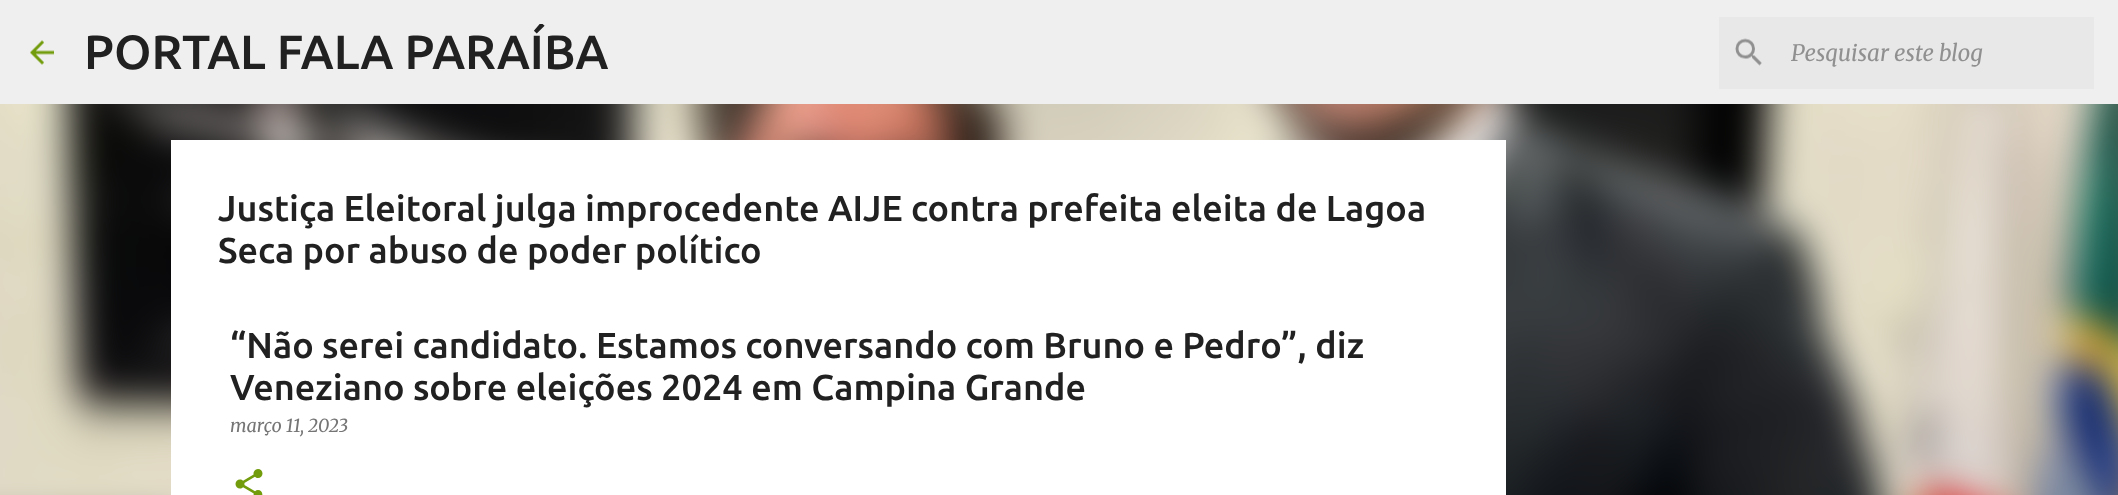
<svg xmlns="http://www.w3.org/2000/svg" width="2118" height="495">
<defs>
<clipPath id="clip1"><rect x="84" y="24" width="525" height="56"/></clipPath>
</defs>
<rect width="100%" height="100%" fill="#fff"/>
<rect width="2118" height="104" fill="#efefef"/>
<image x="30" y="40" width="24" height="25" href="media/1.png"/>
<g clip-path="url(#clip1)">
<text x="84" y="69" style="font-family:Ubuntu;font-size:48px;font-weight:500;fill:#212121">PORTAL FALA PARAÍBA</text>
</g>
<rect x="1719" y="17" width="375" height="72" fill="#e8e8e8"/>
<image x="1735" y="38" width="27" height="28" href="media/2.png"/>
<text x="1791" y="61" style="font-family:Merriweather;font-size:22.5px;font-style:italic;fill:#909090">Pesquisar este blog</text>
<image x="0" y="104" width="2118" height="391" href="media/4.png"/>
<rect x="171" y="140" width="1335" height="355" fill="#fff"/>
<text x="218" y="221" style="font-family:Ubuntu;font-size:36px;font-weight:500;fill:#212121">Justiça Eleitoral julga improcedente AIJE contra prefeita eleita de Lagoa</text>
<text x="218" y="263" style="font-family:Ubuntu;font-size:36px;font-weight:500;fill:#212121">Seca por abuso de poder político</text>
<text x="230" y="358" style="font-family:Ubuntu;font-size:36px;font-weight:500;fill:#212121">“Não serei candidato. Estamos conversando com Bruno e Pedro”, diz</text>
<text x="230" y="400" style="font-family:Ubuntu;font-size:36px;font-weight:500;fill:#212121">Veneziano sobre eleições 2024 em Campina Grande</text>
<text x="230" y="432" style="font-family:Merriweather;font-size:18px;font-style:italic;fill:#757575">março 11, 2023</text>
<image x="235" y="469" width="28" height="26" href="media/3.png"/>
</svg>
